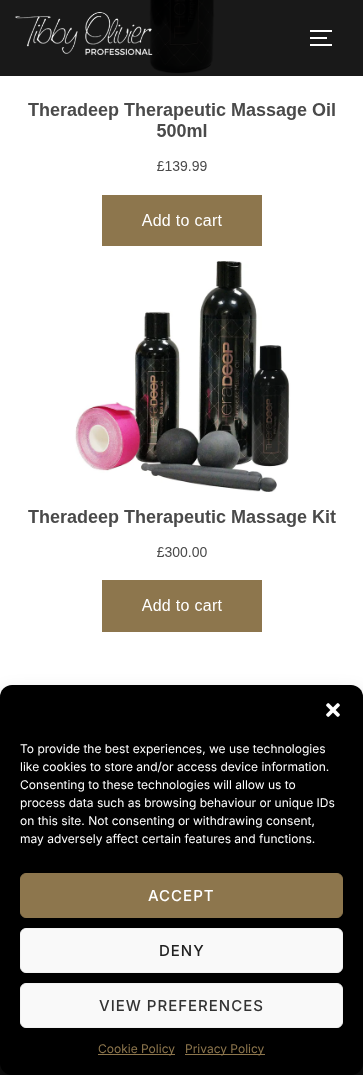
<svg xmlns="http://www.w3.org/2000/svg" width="363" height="1075">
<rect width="100%" height="100%" fill="#fff"/>
<image x="28" y="0" width="308" height="632" href="media/1.png"/>
<rect y="1063" width="363" height="12" fill="#101010"/>
<rect width="363" height="76" fill="#000000e6"/>
<image x="15" y="12" width="138" height="43" href="media/2.png"/>
<rect x="310" y="30" width="22" height="2" fill="#fff"/>
<rect x="310" y="37" width="17" height="2" fill="#fff"/>
<rect x="310" y="44" width="22" height="2" fill="#fff"/>
<rect y="691" width="363" height="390" rx="12" fill="#0000003b" filter="blur(3px)"/>
<rect y="695" width="363" height="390" rx="12" fill="#00000030" filter="blur(10px)"/>
<rect x="293" y="1001" width="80" height="60" rx="2" fill="#808080" filter="blur(2.5px)"/>
<rect y="685" width="363" height="390" rx="12" fill="#000"/>
<image x="326" y="703" width="14" height="14" href="media/3.png"/>
<text x="20" y="753" style="font-family:Inter;font-size:12px;fill:#fff">To provide the best experiences, we use technologies</text>
<text x="20" y="771" style="font-family:Inter;font-size:12px;fill:#fff">like cookies to store and/or access device information.</text>
<text x="20" y="789" style="font-family:Inter;font-size:12px;fill:#fff">Consenting to these technologies will allow us to</text>
<text x="20" y="807" style="font-family:Inter;font-size:12px;fill:#fff">process data such as browsing behaviour or unique IDs</text>
<text x="20" y="825" style="font-family:Inter;font-size:12px;fill:#fff">on this site. Not consenting or withdrawing consent,</text>
<text x="20" y="843" style="font-family:Inter;font-size:12px;fill:#fff">may adversely affect certain features and functions.</text>
<rect x="20.5" y="873.5" width="322" height="44" rx="5.5" fill="#8d764d" stroke="#8d764d"/>
<text x="148" y="901" style="font-family:Inter;font-size:15px;font-weight:500;letter-spacing:1px;fill:#fff">ACCEPT</text>
<rect x="20.5" y="928.5" width="322" height="44" rx="5.5" fill="#f9f9f9" stroke="#f2f2f2"/>
<text x="159" y="956" style="font-family:Inter;font-size:15px;font-weight:500;letter-spacing:1px;fill:#222">DENY</text>
<rect x="20.5" y="983.5" width="322" height="44" rx="5.5" fill="#f9f9f9" stroke="#f2f2f2"/>
<text x="99" y="1011" style="font-family:Inter;font-size:15px;font-weight:500;letter-spacing:1px;fill:#333">VIEW PREFERENCES</text>
<rect x="98" y="1054" width="77" height="1" fill="#8d764d"/>
<text x="98" y="1053" style="font-family:Inter;font-size:12px;fill:#8d764d">Cookie Policy</text>
<rect x="185" y="1054" width="80" height="1" fill="#8d764d"/>
<text x="185" y="1053" style="font-family:Inter;font-size:12px;fill:#8d764d">Privacy Policy</text>
</svg>
